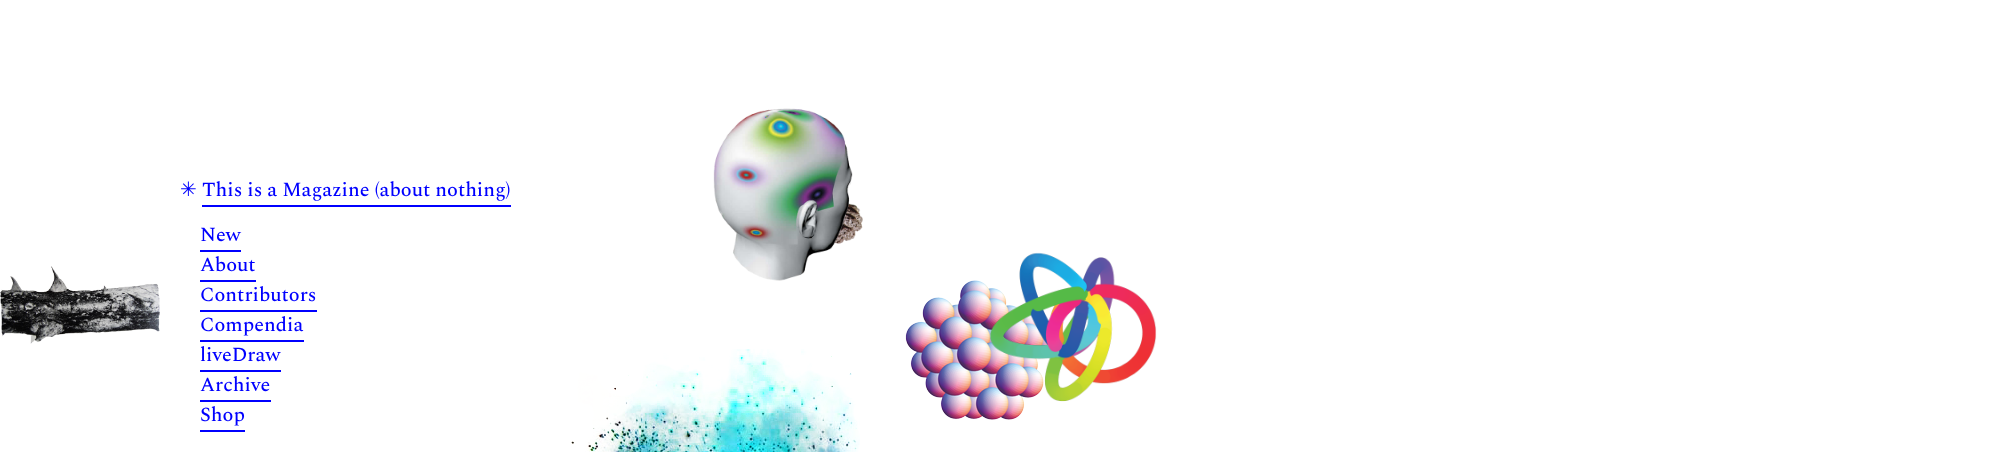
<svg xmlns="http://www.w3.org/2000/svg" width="2003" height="452">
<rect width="100%" height="100%" fill="#fff"/>
<text x="180" y="196" style="font-family:DejaVu Sans;font-size:20px;fill:#00f">✳</text>
<text x="202" y="196" style="font-family:Spectral;font-size:20px;font-weight:500;fill:#00f">This is a Magazine (about nothing)</text>
<rect x="202" y="205" width="309" height="2" fill="#00f"/>
<text x="200" y="241" style="font-family:Spectral;font-size:20px;font-weight:500;fill:#00f">New</text>
<rect x="200" y="250" width="41" height="2" fill="#00f"/>
<text x="200" y="271" style="font-family:Spectral;font-size:20px;font-weight:500;fill:#00f">About</text>
<rect x="200" y="280" width="56" height="2" fill="#00f"/>
<text x="200" y="301" style="font-family:Spectral;font-size:20px;font-weight:500;fill:#00f">Contributors</text>
<text x="200" y="331" style="font-family:Spectral;font-size:20px;font-weight:500;fill:#00f">Compendia</text>
<rect x="200" y="310" width="117" height="2" fill="#00f"/>
<text x="200" y="361" style="font-family:Spectral;font-size:20px;font-weight:500;fill:#00f">liveDraw</text>
<rect x="200" y="340" width="104" height="2" fill="#00f"/>
<text x="200" y="391" style="font-family:Spectral;font-size:20px;font-weight:500;fill:#00f">Archive</text>
<rect x="200" y="370" width="81" height="2" fill="#00f"/>
<text x="200" y="421" style="font-family:Spectral;font-size:20px;font-weight:500;fill:#00f">Shop</text>
<rect x="200" y="400" width="71" height="2" fill="#00f"/>
<rect x="200" y="430" width="45" height="2" fill="#00f"/>
<image x="834" y="203" width="29" height="41" href="media/2.png"/>
<image x="713" y="108" width="140" height="173" href="media/1.png"/>
<image x="0" y="266" width="160" height="78" href="media/3.png"/>
<image x="905" y="280" width="143" height="140" href="media/4.png"/>
<image x="989" y="252" width="168" height="150" href="media/5.png"/>
<image x="571" y="349" width="289" height="103" href="media/6.png"/>
</svg>
